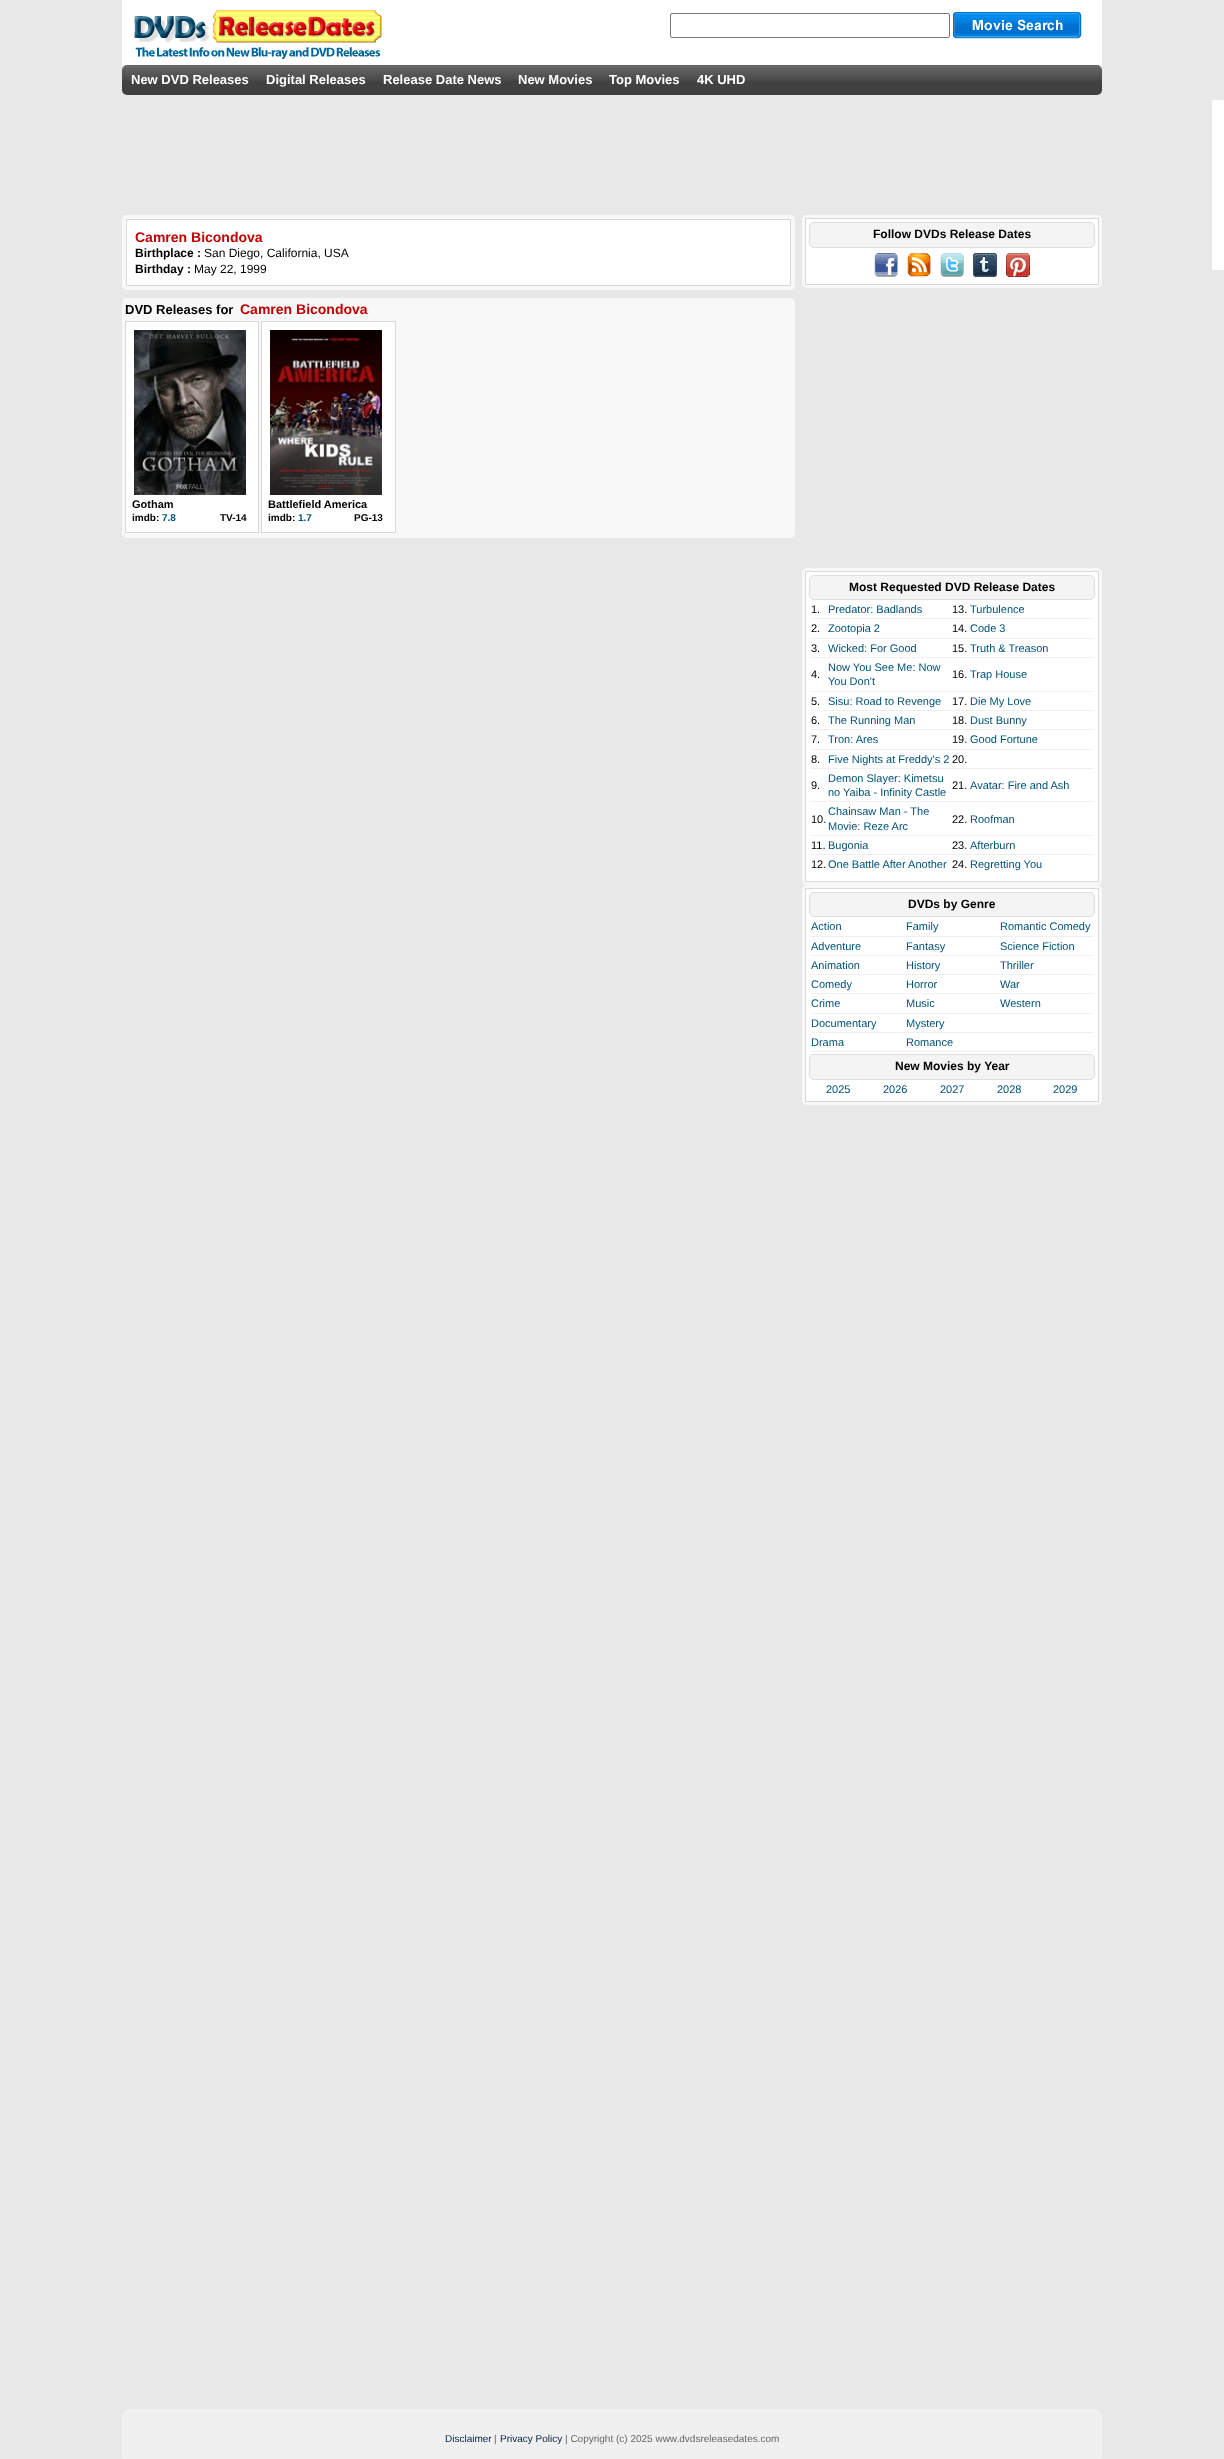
<svg xmlns="http://www.w3.org/2000/svg" width="1224" height="2459">
<defs>
<linearGradient id="g1" gradientUnits="userSpaceOnUse" x1="612" y1="65" x2="612" y2="95"><stop offset="0" stop-color="#545454"/><stop offset="0.03" stop-color="#707070"/><stop offset="0.07" stop-color="#656565"/><stop offset="0.51" stop-color="#494949"/><stop offset="0.53" stop-color="#424242"/><stop offset="1" stop-color="#404040"/></linearGradient>
</defs>
<rect width="100%" height="100%" fill="#e8e8e8"/>
<rect x="122" width="980" height="70" fill="#fff"/>
<image x="134" y="10" width="248" height="49" href="media/1.png"/>
<rect x="670.5" y="13.5" width="279" height="24" rx="1.5" fill="none" stroke="#767676"/>
<image x="953" y="12" width="129" height="27" href="media/2.png"/>
<rect x="122" y="65" width="980" height="30" rx="5" fill="url(#g1)"/>
<text x="131" y="84" style="font-family:Liberation Sans;font-size:13px;font-weight:bold;fill:#fff">New DVD Releases</text>
<text x="266" y="84" style="font-family:Liberation Sans;font-size:13px;font-weight:bold;fill:#fff">Digital Releases</text>
<text x="383" y="84" style="font-family:Liberation Sans;font-size:13px;font-weight:bold;fill:#fff">Release Date News</text>
<text x="518" y="84" style="font-family:Liberation Sans;font-size:13px;font-weight:bold;fill:#fff">New Movies</text>
<text x="609" y="84" style="font-family:Liberation Sans;font-size:13px;font-weight:bold;fill:#fff">Top Movies</text>
<text x="697" y="84" style="font-family:Liberation Sans;font-size:13px;font-weight:bold;fill:#fff">4K UHD</text>
<rect x="122" y="215" width="673" height="75" rx="5" fill="#f8f8f8"/>
<rect x="126.5" y="219.5" width="664" height="66" fill="#fff" stroke="#d8d8d8"/>
<text x="135" y="242" style="font-family:Liberation Sans;font-size:14px;font-weight:bold;fill:#c00000">Camren Bicondova</text>
<text x="135" y="257" style="font-family:Liberation Sans;font-size:12px;font-weight:bold;fill:#000">Birthplace :</text>
<text x="204" y="257" style="font-family:Liberation Sans;font-size:12px;fill:#000">San Diego, California, USA</text>
<text x="135" y="273" style="font-family:Liberation Sans;font-size:12px;font-weight:bold;fill:#000">Birthday :</text>
<text x="194" y="273" style="font-family:Liberation Sans;font-size:12px;fill:#000">May 22, 1999</text>
<rect x="122" y="298" width="673" height="240" rx="5" fill="#f8f8f8"/>
<text x="125" y="314" style="font-family:Liberation Sans;font-size:13px;font-weight:bold;fill:#000">DVD Releases for</text>
<text x="240" y="314" style="font-family:Liberation Sans;font-size:14px;font-weight:bold;fill:#c00000">Camren Bicondova</text>
<rect x="125.5" y="321.5" width="133" height="211" fill="#fff" stroke="#d8d8d8"/>
<image x="134" y="330" width="112" height="165" href="media/3.png"/>
<text x="132" y="508" style="font-family:Liberation Sans;font-size:11px;font-weight:bold;fill:#000">Gotham</text>
<text x="132" y="521" style="font-family:Liberation Sans;font-size:10px;font-weight:bold;fill:#000">imdb:</text>
<text x="162" y="521" style="font-family:Liberation Sans;font-size:10px;font-weight:bold;fill:#005177">7.8</text>
<text x="220" y="521" style="font-family:Liberation Sans;font-size:10px;font-weight:bold;fill:#000">TV-14</text>
<rect x="261.5" y="321.5" width="134" height="211" fill="#fff" stroke="#d8d8d8"/>
<image x="270" y="330" width="112" height="165" href="media/4.png"/>
<text x="268" y="508" style="font-family:Liberation Sans;font-size:11px;font-weight:bold;fill:#000">Battlefield America</text>
<text x="268" y="521" style="font-family:Liberation Sans;font-size:10px;font-weight:bold;fill:#000">imdb:</text>
<text x="298" y="521" style="font-family:Liberation Sans;font-size:10px;font-weight:bold;fill:#005177">1.7</text>
<text x="354" y="521" style="font-family:Liberation Sans;font-size:10px;font-weight:bold;fill:#000">PG-13</text>
<rect x="802" y="215" width="300" height="73" rx="5" fill="#f8f8f8"/>
<rect x="805.5" y="218.5" width="293" height="66" fill="#fff" stroke="#d8d8d8"/>
<rect x="809.5" y="222.5" width="285" height="25" rx="4.5" fill="#f4f4f4" stroke="#dedede"/>
<text x="873" y="238" style="font-family:Liberation Sans;font-size:12px;font-weight:bold;fill:#000">Follow DVDs Release Dates</text>
<image x="874" y="253" width="24" height="24" href="media/5.png"/>
<image x="907" y="253" width="24" height="24" href="media/6.png"/>
<image x="940" y="253" width="24" height="24" href="media/7.png"/>
<image x="973" y="253" width="24" height="24" href="media/8.png"/>
<image x="1006" y="253" width="24" height="24" href="media/9.png"/>
<rect x="802" y="568" width="300" height="317" rx="5" fill="#f8f8f8"/>
<rect x="805.5" y="571.5" width="293" height="310" fill="#fff" stroke="#d8d8d8"/>
<rect x="809.5" y="575.5" width="285" height="24" rx="4.5" fill="#f4f4f4" stroke="#dedede"/>
<text x="849" y="591" style="font-family:Liberation Sans;font-size:12px;font-weight:bold;fill:#000">Most Requested DVD Release Dates</text>
<text x="811" y="613" style="font-family:Liberation Sans;font-size:11px;fill:#000">1.</text>
<text x="828" y="613" style="font-family:Liberation Sans;font-size:11px;fill:#005177">Predator: Badlands</text>
<text x="952" y="613" style="font-family:Liberation Sans;font-size:11px;fill:#000">13.</text>
<text x="970" y="613" style="font-family:Liberation Sans;font-size:11px;fill:#005177">Turbulence</text>
<rect x="811" y="618" width="282" height="1" fill="#f0f0f0"/>
<text x="811" y="632" style="font-family:Liberation Sans;font-size:11px;fill:#000">2.</text>
<text x="828" y="632" style="font-family:Liberation Sans;font-size:11px;fill:#005177">Zootopia 2</text>
<text x="952" y="632" style="font-family:Liberation Sans;font-size:11px;fill:#000">14.</text>
<text x="970" y="632" style="font-family:Liberation Sans;font-size:11px;fill:#005177">Code 3</text>
<rect x="811" y="638" width="282" height="1" fill="#f0f0f0"/>
<text x="811" y="652" style="font-family:Liberation Sans;font-size:11px;fill:#000">3.</text>
<text x="828" y="652" style="font-family:Liberation Sans;font-size:11px;fill:#005177">Wicked: For Good</text>
<text x="952" y="652" style="font-family:Liberation Sans;font-size:11px;fill:#000">15.</text>
<text x="970" y="652" style="font-family:Liberation Sans;font-size:11px;fill:#005177">Truth &amp; Treason</text>
<rect x="811" y="657" width="282" height="1" fill="#f0f0f0"/>
<text x="811" y="678" style="font-family:Liberation Sans;font-size:11px;fill:#000">4.</text>
<text x="828" y="671" style="font-family:Liberation Sans;font-size:11px;fill:#005177">Now You See Me: Now</text>
<text x="828" y="685" style="font-family:Liberation Sans;font-size:11px;fill:#005177">You Don't</text>
<text x="952" y="678" style="font-family:Liberation Sans;font-size:11px;fill:#000">16.</text>
<text x="970" y="678" style="font-family:Liberation Sans;font-size:11px;fill:#005177">Trap House</text>
<rect x="811" y="691" width="282" height="1" fill="#f0f0f0"/>
<text x="811" y="705" style="font-family:Liberation Sans;font-size:11px;fill:#000">5.</text>
<text x="828" y="705" style="font-family:Liberation Sans;font-size:11px;fill:#005177">Sisu: Road to Revenge</text>
<text x="952" y="705" style="font-family:Liberation Sans;font-size:11px;fill:#000">17.</text>
<text x="970" y="705" style="font-family:Liberation Sans;font-size:11px;fill:#005177">Die My Love</text>
<rect x="811" y="710" width="282" height="1" fill="#f0f0f0"/>
<text x="811" y="724" style="font-family:Liberation Sans;font-size:11px;fill:#000">6.</text>
<text x="828" y="724" style="font-family:Liberation Sans;font-size:11px;fill:#005177">The Running Man</text>
<text x="952" y="724" style="font-family:Liberation Sans;font-size:11px;fill:#000">18.</text>
<text x="970" y="724" style="font-family:Liberation Sans;font-size:11px;fill:#005177">Dust Bunny</text>
<rect x="811" y="729" width="282" height="1" fill="#f0f0f0"/>
<text x="811" y="743" style="font-family:Liberation Sans;font-size:11px;fill:#000">7.</text>
<text x="828" y="743" style="font-family:Liberation Sans;font-size:11px;fill:#005177">Tron: Ares</text>
<text x="952" y="743" style="font-family:Liberation Sans;font-size:11px;fill:#000">19.</text>
<text x="970" y="743" style="font-family:Liberation Sans;font-size:11px;fill:#005177">Good Fortune</text>
<rect x="811" y="749" width="282" height="1" fill="#f0f0f0"/>
<text x="811" y="763" style="font-family:Liberation Sans;font-size:11px;fill:#000">8.</text>
<text x="828" y="763" style="font-family:Liberation Sans;font-size:11px;fill:#005177">Five Nights at Freddy's 2</text>
<text x="952" y="763" style="font-family:Liberation Sans;font-size:11px;fill:#000">20.</text>
<rect x="811" y="768" width="282" height="1" fill="#f0f0f0"/>
<text x="811" y="789" style="font-family:Liberation Sans;font-size:11px;fill:#000">9.</text>
<text x="828" y="782" style="font-family:Liberation Sans;font-size:11px;fill:#005177">Demon Slayer: Kimetsu</text>
<text x="828" y="796" style="font-family:Liberation Sans;font-size:11px;fill:#005177">no Yaiba - Infinity Castle</text>
<text x="952" y="789" style="font-family:Liberation Sans;font-size:11px;fill:#000">21.</text>
<text x="970" y="789" style="font-family:Liberation Sans;font-size:11px;fill:#005177">Avatar: Fire and Ash</text>
<rect x="811" y="801" width="282" height="1" fill="#f0f0f0"/>
<text x="811" y="823" style="font-family:Liberation Sans;font-size:11px;fill:#000">10.</text>
<text x="828" y="815" style="font-family:Liberation Sans;font-size:11px;fill:#005177">Chainsaw Man - The</text>
<text x="828" y="830" style="font-family:Liberation Sans;font-size:11px;fill:#005177">Movie: Reze Arc</text>
<text x="952" y="823" style="font-family:Liberation Sans;font-size:11px;fill:#000">22.</text>
<text x="970" y="823" style="font-family:Liberation Sans;font-size:11px;fill:#005177">Roofman</text>
<rect x="811" y="835" width="282" height="1" fill="#f0f0f0"/>
<text x="811" y="849" style="font-family:Liberation Sans;font-size:11px;fill:#000">11.</text>
<text x="828" y="849" style="font-family:Liberation Sans;font-size:11px;fill:#005177">Bugonia</text>
<text x="952" y="849" style="font-family:Liberation Sans;font-size:11px;fill:#000">23.</text>
<text x="970" y="849" style="font-family:Liberation Sans;font-size:11px;fill:#005177">Afterburn</text>
<rect x="811" y="854" width="282" height="1" fill="#f0f0f0"/>
<text x="811" y="868" style="font-family:Liberation Sans;font-size:11px;fill:#000">12.</text>
<text x="828" y="868" style="font-family:Liberation Sans;font-size:11px;fill:#005177">One Battle After Another</text>
<text x="952" y="868" style="font-family:Liberation Sans;font-size:11px;fill:#000">24.</text>
<text x="970" y="868" style="font-family:Liberation Sans;font-size:11px;fill:#005177">Regretting You</text>
<rect x="802" y="885" width="300" height="220" rx="5" fill="#f8f8f8"/>
<rect x="805.5" y="888.5" width="293" height="213" fill="#fff" stroke="#d8d8d8"/>
<rect x="809.5" y="892.5" width="285" height="24" rx="4.5" fill="#f4f4f4" stroke="#dedede"/>
<text x="908" y="908" style="font-family:Liberation Sans;font-size:12px;font-weight:bold;fill:#000">DVDs by Genre</text>
<text x="811" y="930" style="font-family:Liberation Sans;font-size:11px;fill:#005177">Action</text>
<text x="906" y="930" style="font-family:Liberation Sans;font-size:11px;fill:#005177">Family</text>
<text x="1000" y="930" style="font-family:Liberation Sans;font-size:11px;fill:#005177">Romantic Comedy</text>
<rect x="811" y="936" width="282" height="1" fill="#f0f0f0"/>
<text x="811" y="950" style="font-family:Liberation Sans;font-size:11px;fill:#005177">Adventure</text>
<text x="906" y="950" style="font-family:Liberation Sans;font-size:11px;fill:#005177">Fantasy</text>
<text x="1000" y="950" style="font-family:Liberation Sans;font-size:11px;fill:#005177">Science Fiction</text>
<rect x="811" y="955" width="282" height="1" fill="#f0f0f0"/>
<text x="811" y="969" style="font-family:Liberation Sans;font-size:11px;fill:#005177">Animation</text>
<text x="906" y="969" style="font-family:Liberation Sans;font-size:11px;fill:#005177">History</text>
<text x="1000" y="969" style="font-family:Liberation Sans;font-size:11px;fill:#005177">Thriller</text>
<rect x="811" y="974" width="282" height="1" fill="#f0f0f0"/>
<text x="811" y="988" style="font-family:Liberation Sans;font-size:11px;fill:#005177">Comedy</text>
<text x="906" y="988" style="font-family:Liberation Sans;font-size:11px;fill:#005177">Horror</text>
<text x="1000" y="988" style="font-family:Liberation Sans;font-size:11px;fill:#005177">War</text>
<rect x="811" y="993" width="282" height="1" fill="#f0f0f0"/>
<text x="811" y="1007" style="font-family:Liberation Sans;font-size:11px;fill:#005177">Crime</text>
<text x="906" y="1007" style="font-family:Liberation Sans;font-size:11px;fill:#005177">Music</text>
<text x="1000" y="1007" style="font-family:Liberation Sans;font-size:11px;fill:#005177">Western</text>
<rect x="811" y="1013" width="282" height="1" fill="#f0f0f0"/>
<text x="811" y="1027" style="font-family:Liberation Sans;font-size:11px;fill:#005177">Documentary</text>
<text x="906" y="1027" style="font-family:Liberation Sans;font-size:11px;fill:#005177">Mystery</text>
<rect x="811" y="1032" width="282" height="1" fill="#f0f0f0"/>
<text x="811" y="1046" style="font-family:Liberation Sans;font-size:11px;fill:#005177">Drama</text>
<text x="906" y="1046" style="font-family:Liberation Sans;font-size:11px;fill:#005177">Romance</text>
<rect x="811" y="1051" width="282" height="1" fill="#f0f0f0"/>
<rect x="809.5" y="1054.5" width="285" height="25" rx="4.5" fill="#f4f4f4" stroke="#dedede"/>
<text x="895" y="1070" style="font-family:Liberation Sans;font-size:12px;font-weight:bold;fill:#000">New Movies by Year</text>
<text x="826" y="1093" style="font-family:Liberation Sans;font-size:11px;fill:#005177">2025</text>
<text x="883" y="1093" style="font-family:Liberation Sans;font-size:11px;fill:#005177">2026</text>
<text x="940" y="1093" style="font-family:Liberation Sans;font-size:11px;fill:#005177">2027</text>
<text x="997" y="1093" style="font-family:Liberation Sans;font-size:11px;fill:#005177">2028</text>
<text x="1053" y="1093" style="font-family:Liberation Sans;font-size:11px;fill:#005177">2029</text>
<rect x="1212" y="100" width="12" height="170" fill="#fff"/>
<rect x="122" y="2409" width="980" height="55" rx="8" fill="#f0f0f0"/>
<text x="445" y="2442" style="font-family:Liberation Sans;font-size:10px;fill:#002042">Disclaimer</text>
<text x="494" y="2442" style="font-family:Liberation Sans;font-size:10px;fill:#666">|</text>
<text x="500" y="2442" style="font-family:Liberation Sans;font-size:10px;fill:#002042">Privacy Policy</text>
<text x="565" y="2442" style="font-family:Liberation Sans;font-size:10px;fill:#666">| Copyright (c) 2025 www.dvdsreleasedates.com</text>
</svg>
